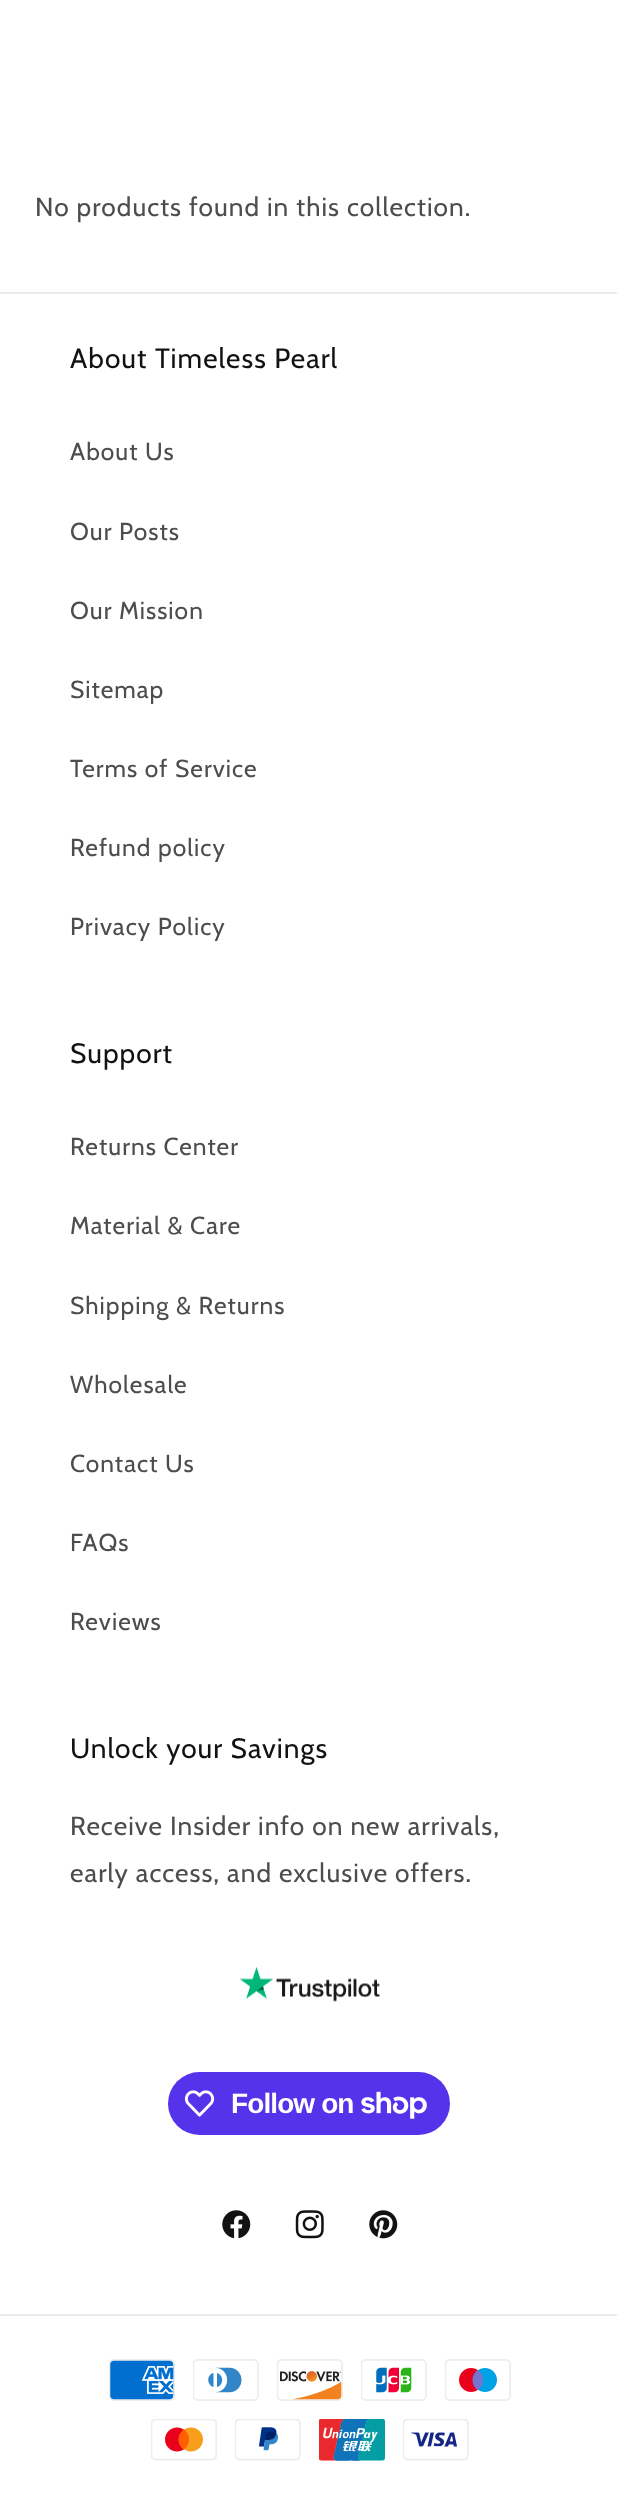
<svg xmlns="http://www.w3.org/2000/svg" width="617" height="2501">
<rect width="100%" height="100%" fill="#fff"/>
<text x="35" y="216" style="font-family:Cabin;font-size:26.25px;letter-spacing:1.05px;fill:#4d4d4d">No products found in this collection.</text>
<rect y="292" width="617" height="2" fill="#ececec"/>
<text x="70" y="368" style="font-family:Cabin;font-size:28px;letter-spacing:1.05px;fill:#121212">About Timeless Pearl</text>
<text x="70" y="460" style="font-family:Cabin;font-size:24.5px;letter-spacing:1.05px;fill:#4d4d4d">About Us</text>
<text x="70" y="540" style="font-family:Cabin;font-size:24.5px;letter-spacing:1.05px;fill:#4d4d4d">Our Posts</text>
<text x="70" y="619" style="font-family:Cabin;font-size:24.5px;letter-spacing:1.05px;fill:#4d4d4d">Our Mission</text>
<text x="70" y="698" style="font-family:Cabin;font-size:24.5px;letter-spacing:1.05px;fill:#4d4d4d">Sitemap</text>
<text x="70" y="777" style="font-family:Cabin;font-size:24.5px;letter-spacing:1.05px;fill:#4d4d4d">Terms of Service</text>
<text x="70" y="856" style="font-family:Cabin;font-size:24.5px;letter-spacing:1.05px;fill:#4d4d4d">Refund policy</text>
<text x="70" y="935" style="font-family:Cabin;font-size:24.5px;letter-spacing:1.05px;fill:#4d4d4d">Privacy Policy</text>
<text x="70" y="1063" style="font-family:Cabin;font-size:28px;letter-spacing:1.05px;fill:#121212">Support</text>
<text x="70" y="1155" style="font-family:Cabin;font-size:24.5px;letter-spacing:1.05px;fill:#4d4d4d">Returns Center</text>
<text x="70" y="1234" style="font-family:Cabin;font-size:24.5px;letter-spacing:1.05px;fill:#4d4d4d">Material &amp; Care</text>
<text x="70" y="1314" style="font-family:Cabin;font-size:24.5px;letter-spacing:1.05px;fill:#4d4d4d">Shipping &amp; Returns</text>
<text x="70" y="1393" style="font-family:Cabin;font-size:24.5px;letter-spacing:1.05px;fill:#4d4d4d">Wholesale</text>
<text x="70" y="1472" style="font-family:Cabin;font-size:24.5px;letter-spacing:1.05px;fill:#4d4d4d">Contact Us</text>
<text x="70" y="1551" style="font-family:Cabin;font-size:24.5px;letter-spacing:1.05px;fill:#4d4d4d">FAQs</text>
<text x="70" y="1630" style="font-family:Cabin;font-size:24.5px;letter-spacing:1.05px;fill:#4d4d4d">Reviews</text>
<text x="70" y="1758" style="font-family:Cabin;font-size:28px;letter-spacing:1.05px;fill:#121212">Unlock your Savings</text>
<text x="70" y="1835" style="font-family:Cabin;font-size:26.25px;letter-spacing:1.05px;fill:#4d4d4d">Receive Insider info on new arrivals,</text>
<text x="70" y="1882" style="font-family:Cabin;font-size:26.25px;letter-spacing:1.05px;fill:#4d4d4d">early access, and exclusive offers.</text>
<image x="240" y="1966" width="140" height="36" href="media/1.png"/>
<rect x="168" y="2072" width="282" height="63" rx="31.5" fill="#5433eb"/>
<image x="184" y="2090" width="31" height="27" href="media/2.png"/>
<text x="231" y="2113" style="font-family:Liberation Sans;font-size:28px;font-weight:bold;letter-spacing:-0.9px;fill:#fff">Follow on</text>
<image x="361" y="2091" width="66" height="28" href="media/3.png"/>
<image x="222" y="2210" width="29" height="29" href="media/4.png"/>
<image x="295" y="2210" width="29" height="29" href="media/5.png"/>
<image x="369" y="2210" width="29" height="29" href="media/6.png"/>
<rect y="2314" width="617" height="2" fill="#ececec"/>
<image x="109" y="2359" width="66" height="42" href="media/7.png"/>
<image x="193" y="2359" width="66" height="42" href="media/8.png"/>
<image x="277" y="2359" width="66" height="42" href="media/9.png"/>
<image x="361" y="2359" width="66" height="42" href="media/10.png"/>
<image x="445" y="2359" width="66" height="42" href="media/11.png"/>
<image x="151" y="2419" width="66" height="42" href="media/12.png"/>
<image x="235" y="2419" width="66" height="42" href="media/13.png"/>
<image x="319" y="2419" width="66" height="42" href="media/14.png"/>
<image x="403" y="2419" width="66" height="42" href="media/15.png"/>
</svg>
